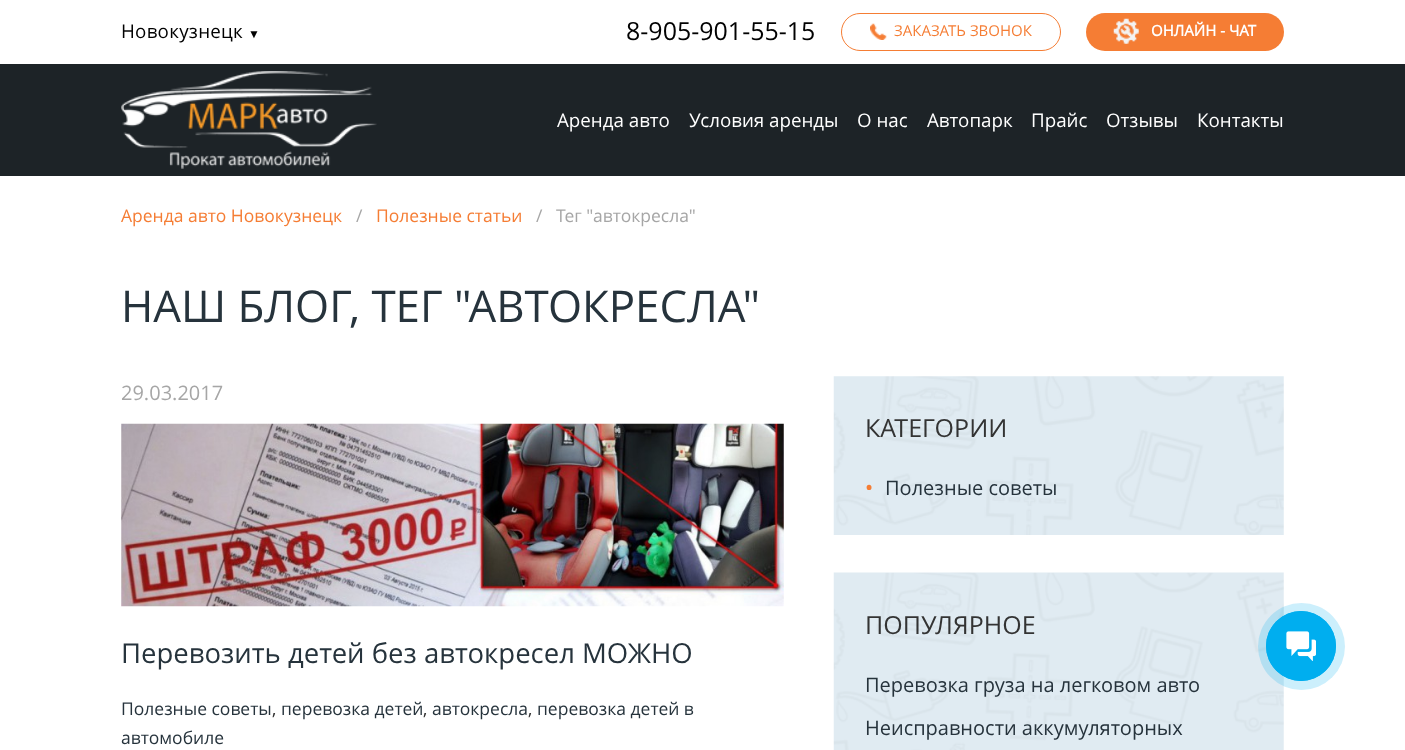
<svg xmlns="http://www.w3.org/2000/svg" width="1405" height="750">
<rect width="100%" height="100%" fill="#fff"/>
<text x="121" y="38" style="font-family:Open Sans;font-size:18.75px;letter-spacing:0.25px;fill:#010101">Новокузнецк</text>
<text x="248" y="38" style="font-family:Liberation Sans;font-size:12px;font-weight:bold;letter-spacing:0.25px;fill:#010101">▼</text>
<text x="626" y="40" style="font-family:Open Sans;font-size:25px;fill:#010101">8-905-901-55-15</text>
<image x="870" y="23" width="17" height="17" href="media/1.png"/>
<rect x="841.5" y="13.5" width="219" height="37" rx="18.5" fill="none" stroke="#f57d34"/>
<text x="894" y="36" style="font-family:Open Sans;font-size:15px;fill:#f57d34">ЗАКАЗАТЬ ЗВОНОК</text>
<rect x="1086" y="13" width="198" height="38" rx="19" fill="#f57d34"/>
<image x="1113" y="18" width="26" height="26" href="media/2.png"/>
<text x="1151" y="36" style="font-family:Open Sans;font-size:15px;font-weight:bold;fill:#fff">ОНЛАЙН - ЧАТ</text>
<rect y="64" width="1405" height="112" fill="#1d2327"/>
<image x="121" y="71" width="256" height="98" href="media/3.png"/>
<text x="557" y="127" style="font-family:Open Sans;font-size:18.75px;fill:#fff">Аренда авто</text>
<text x="689" y="127" style="font-family:Open Sans;font-size:18.75px;fill:#fff">Условия аренды</text>
<text x="857" y="127" style="font-family:Open Sans;font-size:18.75px;fill:#fff">О нас</text>
<text x="927" y="127" style="font-family:Open Sans;font-size:18.75px;fill:#fff">Автопарк</text>
<text x="1031" y="127" style="font-family:Open Sans;font-size:18.75px;fill:#fff">Прайс</text>
<text x="1106" y="127" style="font-family:Open Sans;font-size:18.75px;fill:#fff">Отзывы</text>
<text x="1197" y="127" style="font-family:Open Sans;font-size:18.75px;fill:#fff">Контакты</text>
<text x="121" y="222" style="font-family:Open Sans;font-size:17.5px;fill:#f57d34">Аренда авто Новокузнецк</text>
<text x="356" y="222" style="font-family:Open Sans;font-size:17.5px;fill:#a6a6a6">/</text>
<text x="376" y="222" style="font-family:Open Sans;font-size:17.5px;fill:#f57d34">Полезные статьи</text>
<text x="536" y="222" style="font-family:Open Sans;font-size:17.5px;fill:#a6a6a6">/</text>
<text x="556" y="222" style="font-family:Open Sans;font-size:17.5px;fill:#a6a6a6">Тег "автокресла"</text>
<text x="121" y="322" style="font-family:Open Sans;font-size:43.75px;fill:#26333c">НАШ БЛОГ, ТЕГ "АВТОКРЕСЛА"</text>
<text x="121" y="400" style="font-family:Open Sans;font-size:20px;fill:#a6a6a6">29.03.2017</text>
<image x="121" y="423" width="663" height="184" href="media/4.png"/>
<text x="121" y="663" style="font-family:Open Sans;font-size:27.5px;fill:#26333c">Перевозить детей без автокресел‍ МОЖНО</text>
<text x="121" y="715" style="font-family:Open Sans;font-size:17.5px;fill:#26333c">Полезные советы</text>
<text x="272" y="715" style="font-family:Open Sans;font-size:17.5px;fill:#333">,</text>
<text x="281" y="715" style="font-family:Open Sans;font-size:17.5px;fill:#26333c">перевозка детей</text>
<text x="423" y="715" style="font-family:Open Sans;font-size:17.5px;fill:#333">,</text>
<text x="432" y="715" style="font-family:Open Sans;font-size:17.5px;fill:#26333c">автокресла</text>
<text x="528" y="715" style="font-family:Open Sans;font-size:17.5px;fill:#333">,</text>
<text x="537" y="715" style="font-family:Open Sans;font-size:17.5px;fill:#26333c">перевозка детей в</text>
<text x="121" y="744" style="font-family:Open Sans;font-size:17.5px;fill:#26333c">автомобиле</text>
<image x="833" y="376" width="451" height="159" href="media/5.png"/>
<text x="865" y="437" style="font-family:Open Sans;font-size:25px;fill:#333">КАТЕГОРИИ</text>
<text x="865" y="495" style="font-family:Open Sans;font-size:20px;font-weight:bold;fill:#f57d34">•</text>
<text x="885" y="495" style="font-family:Open Sans;font-size:20px;fill:#26333c">Полезные советы</text>
<image x="833" y="572" width="451" height="178" href="media/6.png"/>
<text x="865" y="634" style="font-family:Open Sans;font-size:25px;fill:#333">ПОПУЛЯРНОЕ</text>
<text x="865" y="692" style="font-family:Open Sans;font-size:20px;fill:#26333c">Перевозка груза на легковом авто</text>
<text x="865" y="735" style="font-family:Open Sans;font-size:20px;fill:#26333c">Неисправности аккумуляторных</text>
<circle cx="1301.5" cy="646.5" r="43.5" fill="#00aeef33"/>
<circle cx="1301" cy="646" r="34.5" fill="none" stroke="#00aeef"/>
<circle cx="1301" cy="646" r="35" fill="#00aeef"/>
<image x="1286" y="631" width="30" height="30" href="media/7.png"/>
</svg>
